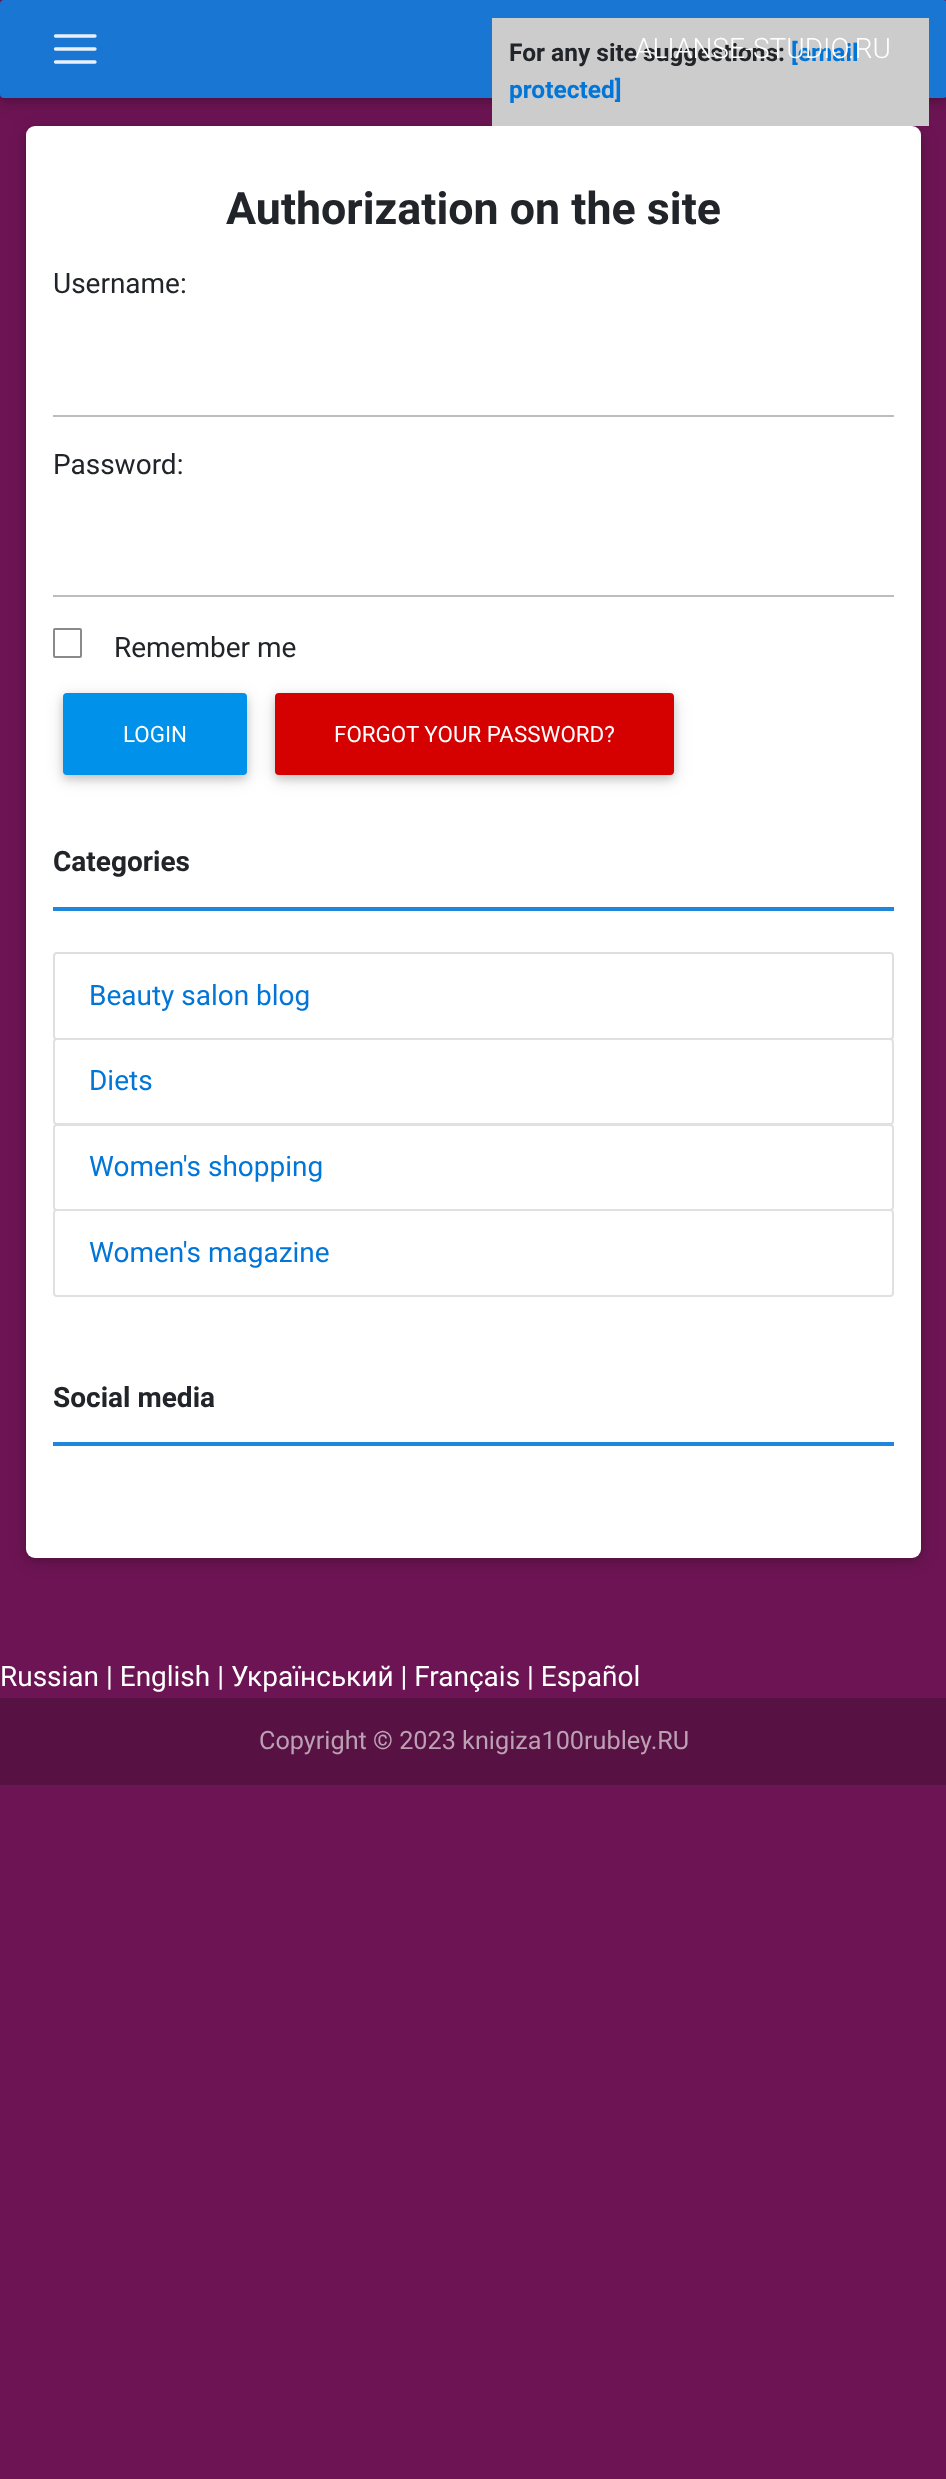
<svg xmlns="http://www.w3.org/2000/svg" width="946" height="2479">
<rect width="100%" height="100%" fill="#6d1554"/>
<rect y="4" width="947" height="98" rx="4" fill="#0000001f" filter="blur(9px)"/>
<rect y="4" width="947" height="98" rx="4" fill="#00000029" filter="blur(4.5px)"/>
<rect width="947" height="98" rx="4" fill="#1976d2"/>
<path d="M55.5 36h39.5m-39.5 13h39.5m-39.5 13h39.5" fill="none" stroke="#e8f1fb" stroke-width="3.3" stroke-linecap="round"/>
<rect x="26" y="130" width="895" height="1431" rx="9" fill="#0000001f" filter="blur(9px)"/>
<rect x="26" y="130" width="895" height="1431" rx="9" fill="#00000029" filter="blur(4.5px)"/>
<rect x="492" y="18" width="437" height="108" fill="#ccc"/>
<text x="509" y="61" style="font-family:Roboto;font-size:24.5px;font-weight:bold;fill:#212529">For any site suggestions:</text>
<text x="791" y="61" style="font-family:Roboto;font-size:24.5px;font-weight:bold;fill:#0275d8">[email</text>
<text x="635" y="58" style="font-family:Roboto;font-size:28px;font-weight:300;fill:#fff">ALIANSE-STUDIO.RU</text>
<text x="509" y="98" style="font-family:Roboto;font-size:24.5px;font-weight:bold;fill:#0275d8">protected]</text>
<rect x="26" y="126" width="895" height="1432" rx="9" fill="#fff"/>
<text x="226" y="224" style="font-family:Roboto;font-size:44.75px;font-weight:bold;fill:#212529">Authorization on the site</text>
<text x="53" y="293" style="font-family:Roboto;font-size:28px;fill:#212529">Username:</text>
<rect x="53" y="415" width="841" height="2" fill="#bdbdbd"/>
<text x="53" y="474" style="font-family:Roboto;font-size:28px;fill:#212529">Password:</text>
<rect x="53" y="595" width="841" height="2" fill="#bdbdbd"/>
<rect x="54" y="629" width="27" height="28" rx="1" fill="none" stroke="#8a8a8a" stroke-width="2"/>
<text x="114" y="657" style="font-family:Roboto;font-size:28px;fill:#212529">Remember me</text>
<rect x="63" y="697" width="184" height="82" rx="4" fill="#0000001f" filter="blur(9px)"/>
<rect x="63" y="697" width="184" height="82" rx="4" fill="#00000029" filter="blur(4.5px)"/>
<rect x="63" y="693" width="184" height="82" rx="4" fill="#0091ea"/>
<text x="123" y="742" style="font-family:Roboto;font-size:22.4px;fill:#fff">LOGIN</text>
<rect x="275" y="697" width="399" height="82" rx="4" fill="#0000001f" filter="blur(9px)"/>
<rect x="275" y="697" width="399" height="82" rx="4" fill="#00000029" filter="blur(4.5px)"/>
<rect x="275" y="693" width="399" height="82" rx="4" fill="#d50000"/>
<text x="334" y="742" style="font-family:Roboto;font-size:22.4px;fill:#fff">FORGOT YOUR PASSWORD?</text>
<text x="53" y="871" style="font-family:Roboto;font-size:28px;font-weight:bold;fill:#212529">Categories</text>
<rect x="53" y="907" width="841" height="4" fill="#1e87db"/>
<rect x="54" y="953" width="839" height="86" rx="3" fill="none" stroke="#dfdfdf" stroke-width="2"/>
<text x="89" y="1005" style="font-family:Roboto;font-size:28px;fill:#0275d8">Beauty salon blog</text>
<rect x="53" y="1038" width="841" height="87" rx="4" fill="#fff"/>
<rect x="54" y="1039" width="839" height="85" rx="3" fill="none" stroke="#0000001f" stroke-width="2"/>
<text x="89" y="1090" style="font-family:Roboto;font-size:28px;fill:#0275d8">Diets</text>
<rect x="53" y="1124" width="841" height="87" rx="4" fill="#fff"/>
<rect x="54" y="1125" width="839" height="85" rx="3" fill="none" stroke="#0000001f" stroke-width="2"/>
<text x="89" y="1176" style="font-family:Roboto;font-size:28px;fill:#0275d8">Women's shopping</text>
<rect x="53" y="1209" width="841" height="88" rx="4" fill="#fff"/>
<rect x="54" y="1210" width="839" height="86" rx="3" fill="none" stroke="#0000001f" stroke-width="2"/>
<text x="89" y="1262" style="font-family:Roboto;font-size:28px;fill:#0275d8">Women's magazine</text>
<text x="53" y="1407" style="font-family:Roboto;font-size:28px;font-weight:bold;fill:#212529">Social media</text>
<rect x="53" y="1442" width="841" height="4" fill="#1e87db"/>
<text x="0" y="1686" style="font-family:Roboto;font-size:28px;fill:#fff">Russian | English | Український | Français | Español</text>
<rect y="1698" width="946" height="87" fill="#571143"/>
<text x="259" y="1749" style="font-family:Roboto;font-size:25.25px;fill:#bca0b4">Copyright © 2023 knigiza100rubley.RU</text>
</svg>
